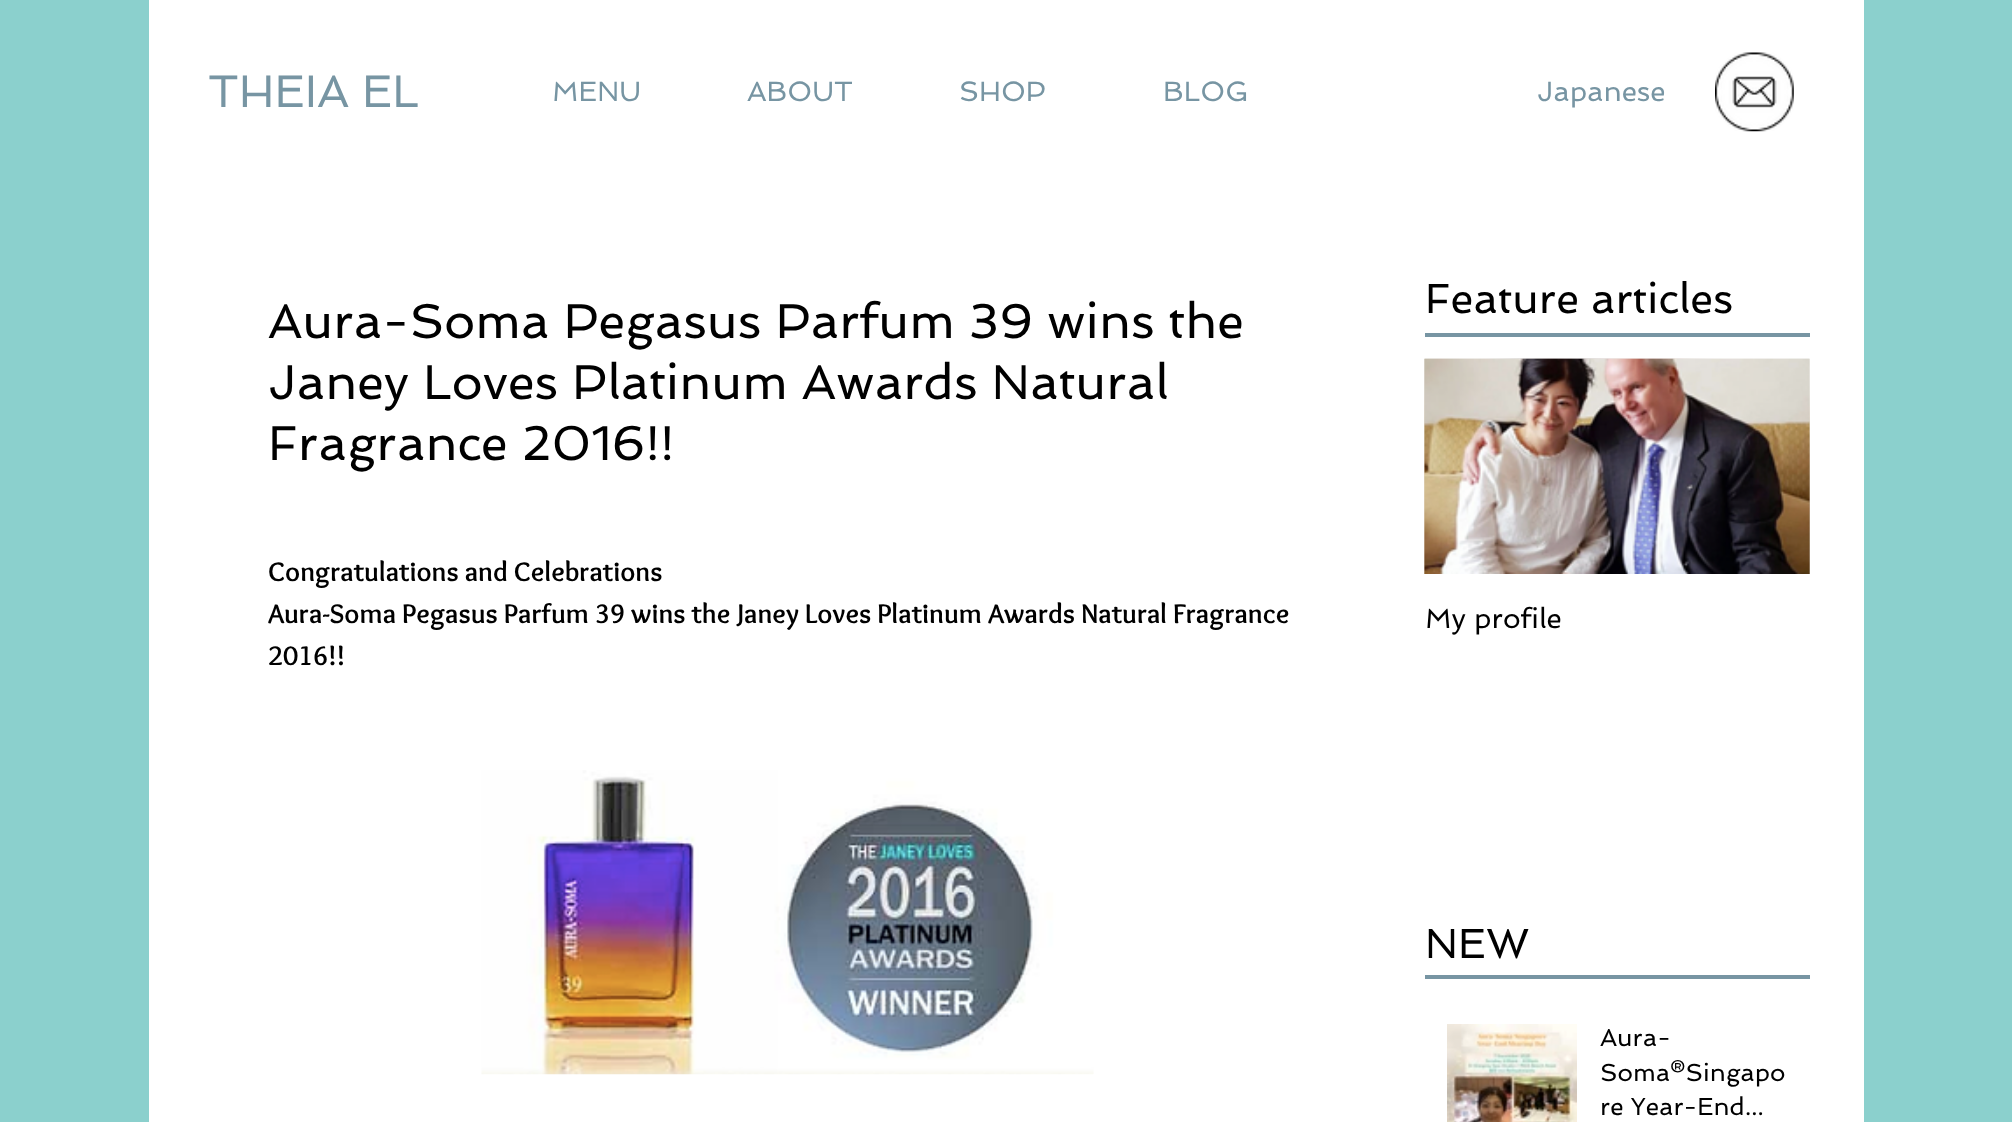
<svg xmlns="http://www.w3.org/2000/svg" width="2012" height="1122">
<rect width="100%" height="100%" fill="#8bd0cd"/>
<rect x="149" width="1715" height="1122" fill="#fff"/>
<text x="208" y="107" style="font-family:Spinnaker;font-size:45.5px;fill:#7795a3">THEIA EL</text>
<text x="552" y="101" style="font-family:Spinnaker;font-size:28px;fill:#7795a3">MENU</text>
<text x="747" y="101" style="font-family:Spinnaker;font-size:28px;fill:#7795a3">ABOUT</text>
<text x="959" y="101" style="font-family:Spinnaker;font-size:28px;fill:#7795a3">SHOP</text>
<text x="1163" y="101" style="font-family:Spinnaker;font-size:28px;fill:#7795a3">BLOG</text>
<text x="1537" y="101" style="font-family:Spinnaker;font-size:28px;fill:#7795a3">Japanese</text>
<image x="1715" y="52" width="79" height="80" href="media/1.png"/>
<text x="268" y="338" style="font-family:Spinnaker;font-size:49px;fill:#000">Aura-Soma Pegasus Parfum 39 wins the</text>
<text x="268" y="399" style="font-family:Spinnaker;font-size:49px;fill:#000">Janey Loves Platinum Awards Natural</text>
<text x="268" y="460" style="font-family:Spinnaker;font-size:49px;fill:#000">Fragrance 2016!!</text>
<text x="268" y="581" style="font-family:Overlock;font-size:28px;font-weight:bold;fill:#000">Congratulations and Celebrations</text>
<text x="268" y="623" style="font-family:Overlock;font-size:28px;font-weight:bold;fill:#000">Aura-Soma Pegasus Parfum 39 wins the Janey Loves Platinum Awards Natural Fragrance</text>
<text x="268" y="665" style="font-family:Overlock;font-size:28px;font-weight:bold;fill:#000">2016!!</text>
<image x="481" y="770" width="613" height="305" href="media/2.png"/>
<text x="1425" y="313" style="font-family:Spinnaker;font-size:42px;fill:#000">Feature articles</text>
<rect x="1425" y="333" width="385" height="4" fill="#7795a3"/>
<image x="1424" y="358" width="386" height="216" href="media/3.png"/>
<image x="1424" y="358" width="386" height="216" href="media/4.png"/>
<text x="1425" y="628" style="font-family:Spinnaker;font-size:28px;fill:#000">My profile</text>
<text x="1425" y="958" style="font-family:Spinnaker;font-size:42px;fill:#000">NEW</text>
<rect x="1425" y="975" width="385" height="4" fill="#7795a3"/>
<image x="1447" y="1024" width="130" height="98" href="media/5.png"/>
<text x="1600" y="1046" style="font-family:Spinnaker;font-size:24.5px;fill:#000">Aura-</text>
<text x="1600" y="1081" style="font-family:Spinnaker;font-size:24.5px;fill:#000">Soma®Singapo</text>
<text x="1600" y="1115" style="font-family:Spinnaker;font-size:24.5px;fill:#000">re Year-End...</text>
</svg>
